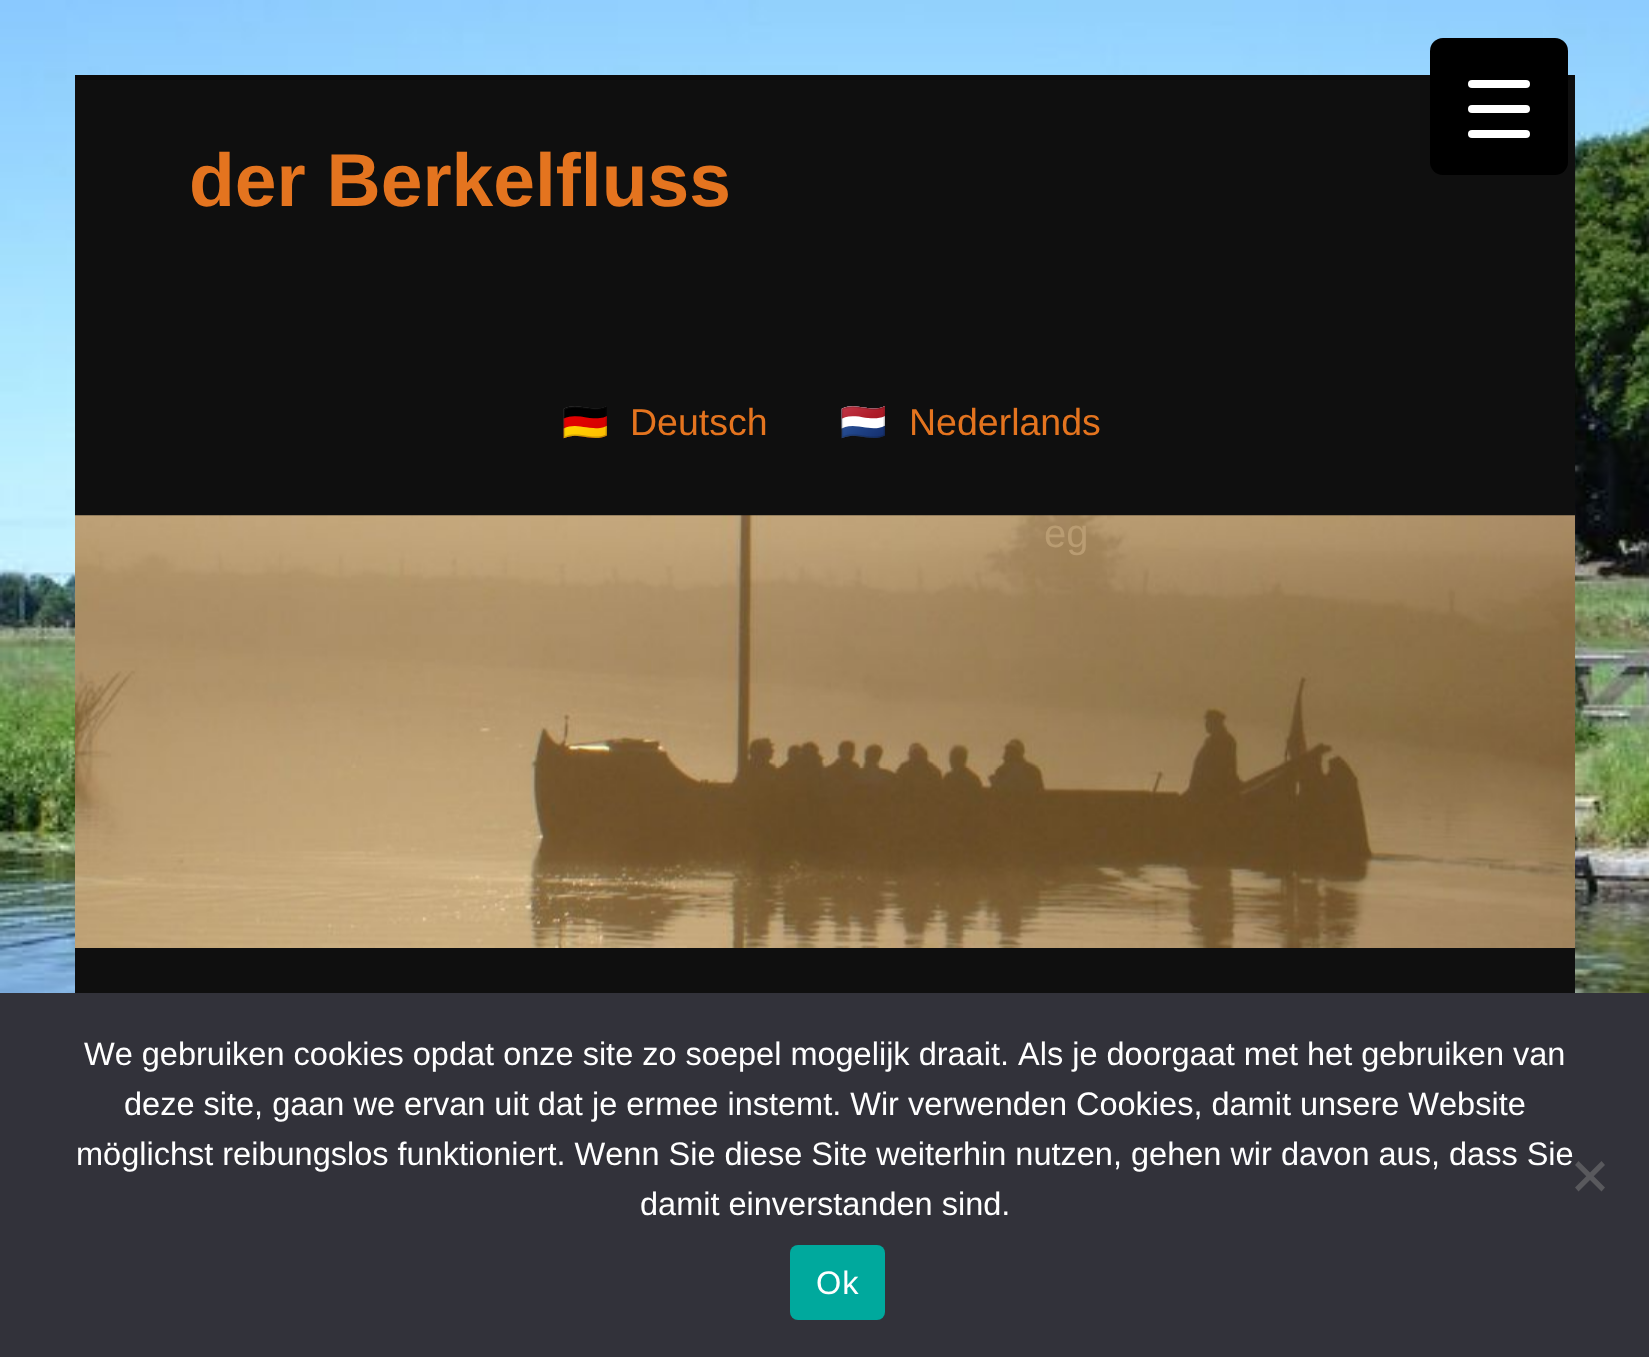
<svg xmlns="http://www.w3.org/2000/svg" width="1649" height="1357">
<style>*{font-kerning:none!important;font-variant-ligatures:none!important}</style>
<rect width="100%" height="100%" fill="#fff"/>
<image x="0" y="0" width="1649" height="993" href="media/1.png"/>
<rect x="75" y="80" width="1500" height="913" fill="#0f0f0f"/>
<rect x="75" y="75" width="1500" height="5" fill="#0a0a0a"/>
<rect x="1430" y="38" width="138" height="137" rx="13" fill="#000"/>
<rect x="1468" y="105" width="62" height="8" rx="4" fill="#fff"/>
<rect x="1468" y="80" width="62" height="8" rx="4" fill="#fff"/>
<rect x="1468" y="130" width="62" height="8" rx="4" fill="#fff"/>
<text x="189" y="206" style="font-family:Liberation Sans;font-size:75px;font-weight:bold;fill:#e4741f">der Berkelfluss</text>
<text x="562" y="435" style="font-family:Noto Color Emoji;font-size:37.5px;fill:#bbb">🇩🇪</text>
<text x="630" y="435" style="font-family:Liberation Sans;font-size:37.5px;fill:#e4741f">Deutsch</text>
<text x="840" y="435" style="font-family:Noto Color Emoji;font-size:37.5px;fill:#bbb">🇳🇱</text>
<text x="909" y="435" style="font-family:Liberation Sans;font-size:37.5px;fill:#e4741f">Nederlands</text>
<image x="75" y="515" width="1500" height="433" href="media/2.png"/>
<text x="1044" y="547" style="font-family:Liberation Sans;font-size:40px;fill:#b99c72">eg</text>
<rect y="993" width="1649" height="364" fill="#32323a"/>
<text x="84" y="1065" style="font-family:Liberation Sans;font-size:32.5px;fill:#fff">We gebruiken cookies opdat onze site zo soepel mogelijk draait. Als je doorgaat met het gebruiken van</text>
<text x="124" y="1115" style="font-family:Liberation Sans;font-size:32.5px;fill:#fff">deze site, gaan we ervan uit dat je ermee instemt. Wir verwenden Cookies, damit unsere Website</text>
<text x="76" y="1165" style="font-family:Liberation Sans;font-size:32.5px;fill:#fff">möglichst reibungslos funktioniert. Wenn Sie diese Site weiterhin nutzen, gehen wir davon aus, dass Sie</text>
<text x="640" y="1215" style="font-family:Liberation Sans;font-size:32.5px;fill:#fff">damit einverstanden sind.</text>
<path d="M1601.5 1161l3.5 4l-26.5 26.5l-3.5-4z" fill="#59595d"/>
<path d="M1575 1165l3.5-4l26.5 26.5l-3.5 4z" fill="#59595d"/>
<rect x="790" y="1245" width="95" height="75" rx="8" fill="#00a99d"/>
<text x="816" y="1294" style="font-family:Liberation Sans;font-size:32.5px;letter-spacing:1px;fill:#fff">Ok</text>
</svg>
